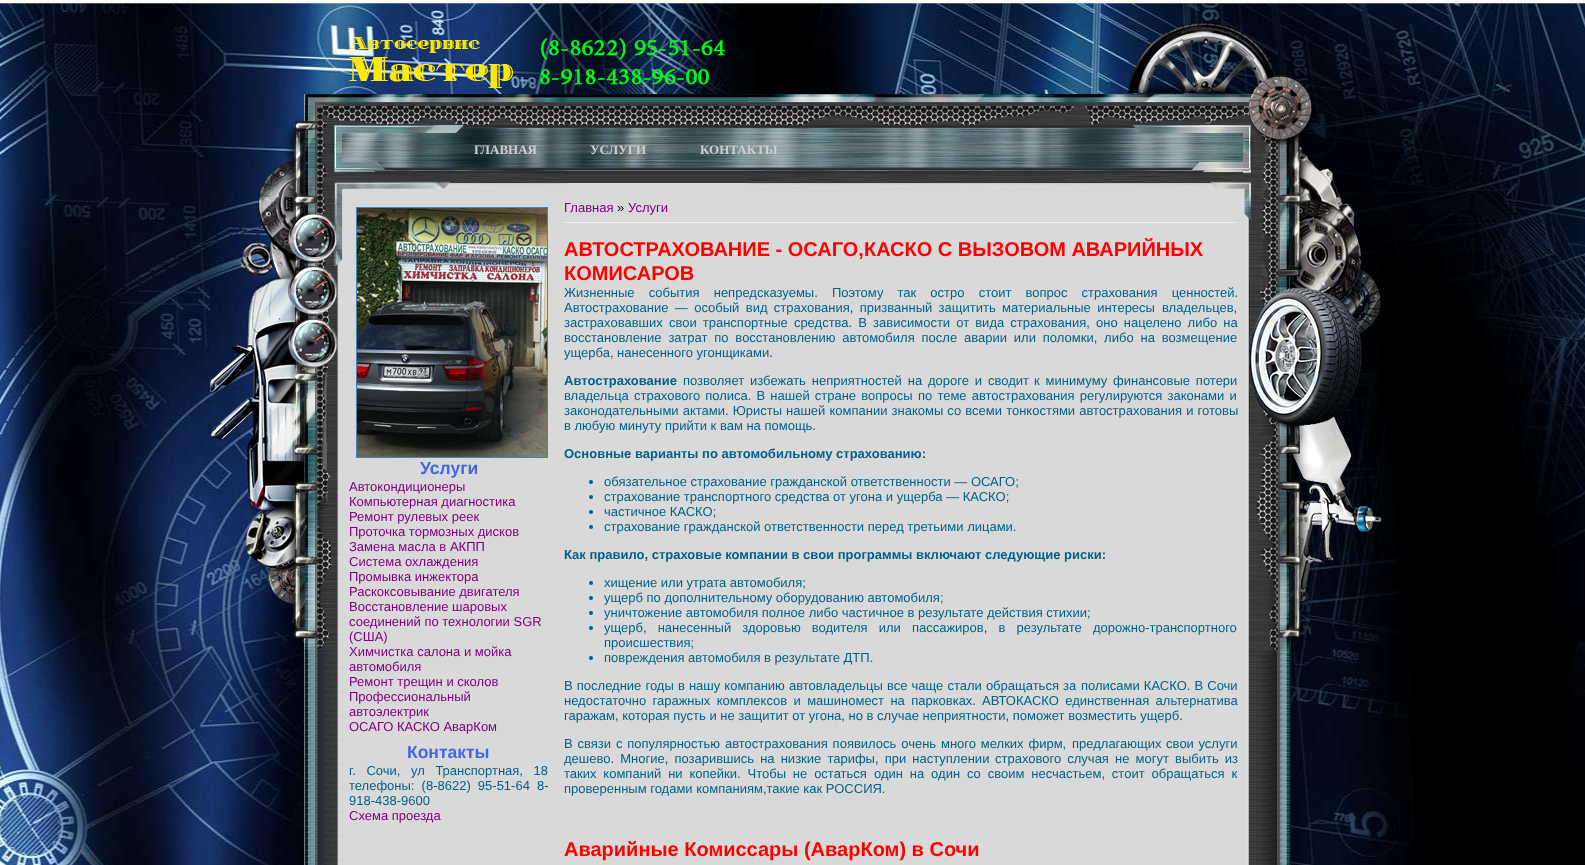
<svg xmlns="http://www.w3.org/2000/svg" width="1585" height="865">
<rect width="100%" height="100%" fill="#fff"/>
<image x="0" y="0" width="1585" height="865" href="media/1.png"/>
<image x="568" y="94" width="180" height="89" href="media/2.png"/>
<rect x="343" y="183" width="900" height="682" fill="#d9d9d9"/>
<image x="343" y="94" width="225" height="95" href="media/3.png"/>
<image x="748" y="94" width="495" height="95" href="media/4.png"/>
<image x="349" y="37" width="376" height="51" href="media/5.png"/>
<image x="1128" y="22" width="150" height="71" href="media/6.png"/>
<image x="304" y="94" width="39" height="771" href="media/8.png"/>
<image x="210" y="94" width="133" height="556" href="media/9.png"/>
<image x="1243" y="94" width="48" height="771" href="media/11.png"/>
<image x="1243" y="75" width="139" height="577" href="media/12.png"/>
<image x="334" y="125" width="917" height="45" href="media/7.png"/>
<text x="474" y="154" style="font-family:Liberation Serif;font-size:13px;font-weight:bold;fill:#cecece">ГЛАВНАЯ</text>
<text x="590" y="154" style="font-family:Liberation Serif;font-size:13px;font-weight:bold;fill:#cecece">УСЛУГИ</text>
<text x="700" y="154" style="font-family:Liberation Serif;font-size:13px;font-weight:bold;fill:#cecece">КОНТАКТЫ</text>
<rect x="356.5" y="207.5" width="191" height="250" fill="none" stroke="#4682b4"/>
<image x="357" y="208" width="190" height="249" href="media/10.png"/>
<text x="420" y="474" style="font-family:Liberation Sans;font-size:17.5px;font-weight:bold;fill:#4169e1">Услуги</text>
<text x="349" y="491" style="font-family:Liberation Sans;font-size:13px;fill:#800080">Автокондиционеры</text>
<text x="349" y="506" style="font-family:Liberation Sans;font-size:13px;fill:#800080">Компьютерная диагностика</text>
<text x="349" y="521" style="font-family:Liberation Sans;font-size:13px;fill:#800080">Ремонт рулевых реек</text>
<text x="349" y="536" style="font-family:Liberation Sans;font-size:13px;fill:#800080">Проточка тормозных дисков</text>
<text x="349" y="551" style="font-family:Liberation Sans;font-size:13px;fill:#800080">Замена масла в АКПП</text>
<text x="349" y="566" style="font-family:Liberation Sans;font-size:13px;fill:#800080">Система охлаждения</text>
<text x="349" y="581" style="font-family:Liberation Sans;font-size:13px;fill:#800080">Промывка инжектора</text>
<text x="349" y="596" style="font-family:Liberation Sans;font-size:13px;fill:#800080">Раскоксовывание двигателя</text>
<text x="349" y="611" style="font-family:Liberation Sans;font-size:13px;fill:#800080">Восстановление шаровых</text>
<text x="349" y="626" style="font-family:Liberation Sans;font-size:13px;fill:#800080">соединений по технологии SGR</text>
<text x="349" y="641" style="font-family:Liberation Sans;font-size:13px;fill:#800080">(США)</text>
<text x="349" y="656" style="font-family:Liberation Sans;font-size:13px;fill:#800080">Химчистка салона и мойка</text>
<text x="349" y="671" style="font-family:Liberation Sans;font-size:13px;fill:#800080">автомобиля</text>
<text x="349" y="686" style="font-family:Liberation Sans;font-size:13px;fill:#800080">Ремонт трещин и сколов</text>
<text x="349" y="701" style="font-family:Liberation Sans;font-size:13px;fill:#800080">Профессиональный</text>
<text x="349" y="716" style="font-family:Liberation Sans;font-size:13px;fill:#800080">автоэлектрик</text>
<text x="349" y="731" style="font-family:Liberation Sans;font-size:13px;fill:#800080">ОСАГО КАСКО АварКом</text>
<text x="407" y="758" style="font-family:Liberation Sans;font-size:17.5px;font-weight:bold;fill:#4169e1">Контакты</text>
<text x="349" y="775" word-spacing="7" style="font-family:Liberation Sans;font-size:13px;fill:#00618a">г. Сочи, ул Транспортная, 18</text>
<text x="349" y="790" word-spacing="3.5" style="font-family:Liberation Sans;font-size:13px;fill:#00618a">телефоны: (8-8622) 95-51-64 8-</text>
<text x="349" y="805" style="font-family:Liberation Sans;font-size:13px;fill:#00618a">918-438-9600</text>
<text x="349" y="820" style="font-family:Liberation Sans;font-size:13px;fill:#800080">Схема проезда</text>
<text x="564" y="212" style="font-family:Liberation Sans;font-size:13px;fill:#800080">Главная</text>
<text x="617" y="212" style="font-family:Liberation Sans;font-size:13px;fill:#000">»</text>
<text x="628" y="212" style="font-family:Liberation Sans;font-size:13px;fill:#800080">Услуги</text>
<rect x="564" y="222" width="674" height="1" fill="#ededed"/>
<text x="564" y="256" style="font-family:Liberation Sans;font-size:20px;font-weight:bold;fill:#f00">АВТОСТРАХОВАНИЕ - ОСАГО,КАСКО С ВЫЗОВОМ АВАРИЙНЫХ</text>
<text x="564" y="280" style="font-family:Liberation Sans;font-size:20px;font-weight:bold;fill:#f00">КОМИСАРОВ</text>
<text x="564" y="297" word-spacing="10.5" style="font-family:Liberation Sans;font-size:13px;fill:#00618a">Жизненные события непредсказуемы. Поэтому так остро стоит вопрос страхования ценностей.</text>
<text x="564" y="312" word-spacing="2.75" style="font-family:Liberation Sans;font-size:13px;fill:#00618a">Автострахование — особый вид страхования, призванный защитить материальные интересы</text>
<text x="1162" y="312" style="font-family:Liberation Sans;font-size:13px;fill:#00618a">владельцев,</text>
<text x="564" y="327" word-spacing="2.5" style="font-family:Liberation Sans;font-size:13px;fill:#00618a">застраховавших свои транспортные средства. В зависимости от вида страхования,</text>
<text x="1096" y="327" word-spacing="2.5" style="font-family:Liberation Sans;font-size:13px;fill:#00618a">оно нацелено либо на</text>
<text x="564" y="342" word-spacing="3.25" style="font-family:Liberation Sans;font-size:13px;fill:#00618a">восстановление затрат по восстановлению автомобиля после</text>
<text x="964" y="342" word-spacing="3.25" style="font-family:Liberation Sans;font-size:13px;fill:#00618a">аварии или поломки, либо на возмещение</text>
<text x="564" y="357" style="font-family:Liberation Sans;font-size:13px;fill:#00618a">ущерба, нанесенного угонщиками.</text>
<text x="564" y="385" style="font-family:Liberation Sans;font-size:13px;font-weight:bold;fill:#00618a">Автострахование</text>
<text x="683" y="385" word-spacing="2.25" style="font-family:Liberation Sans;font-size:13px;fill:#00618a">позволяет избежать неприятностей на дороге и сводит</text>
<text x="1034" y="385" word-spacing="2.25" style="font-family:Liberation Sans;font-size:13px;fill:#00618a">к минимуму финансовые потери</text>
<text x="564" y="400" word-spacing="1.5" style="font-family:Liberation Sans;font-size:13px;fill:#00618a">владельца страхового полиса. В нашей стране вопросы</text>
<text x="918" y="400" word-spacing="1.5" style="font-family:Liberation Sans;font-size:13px;fill:#00618a">по теме автострахования регулируются законами и</text>
<text x="564" y="415" word-spacing="0.5" style="font-family:Liberation Sans;font-size:13px;fill:#00618a">законодательными актами. Юристы</text>
<text x="786" y="415" word-spacing="0.5" style="font-family:Liberation Sans;font-size:13px;fill:#00618a">нашей компании знакомы со всеми тонкостями автострахования и готовы</text>
<text x="564" y="430" style="font-family:Liberation Sans;font-size:13px;fill:#00618a">в любую минуту прийти к вам на помощь.</text>
<text x="564" y="458" style="font-family:Liberation Sans;font-size:13px;font-weight:bold;fill:#00618a">Основные варианты по автомобильному страхованию:</text>
<circle cx="591" cy="482" r="2" fill="#00618a"/>
<text x="604" y="486" style="font-family:Liberation Sans;font-size:13px;fill:#00618a">обязательное страхование гражданской ответственности — ОСАГО;</text>
<circle cx="591" cy="497" r="2" fill="#00618a"/>
<text x="604" y="501" style="font-family:Liberation Sans;font-size:13px;fill:#00618a">страхование транспортного средства от угона и ущерба — КАСКО;</text>
<circle cx="591" cy="512" r="2" fill="#00618a"/>
<text x="604" y="516" style="font-family:Liberation Sans;font-size:13px;fill:#00618a">частичное КАСКО;</text>
<circle cx="591" cy="527" r="2" fill="#00618a"/>
<text x="604" y="531" style="font-family:Liberation Sans;font-size:13px;fill:#00618a">страхование гражданской ответственности перед третьими лицами.</text>
<text x="564" y="559" style="font-family:Liberation Sans;font-size:13px;font-weight:bold;fill:#00618a">Как правило, страховые компании в свои программы включают следующие риски:</text>
<circle cx="591" cy="583" r="2" fill="#00618a"/>
<text x="604" y="587" style="font-family:Liberation Sans;font-size:13px;fill:#00618a">хищение или утрата автомобиля;</text>
<circle cx="591" cy="598" r="2" fill="#00618a"/>
<text x="604" y="602" style="font-family:Liberation Sans;font-size:13px;fill:#00618a">ущерб по дополнительному оборудованию автомобиля;</text>
<circle cx="591" cy="613" r="2" fill="#00618a"/>
<text x="604" y="617" style="font-family:Liberation Sans;font-size:13px;fill:#00618a">уничтожение автомобиля полное либо частичное в результате действия стихии;</text>
<circle cx="591" cy="628" r="2" fill="#00618a"/>
<text x="604" y="632" word-spacing="7.5" style="font-family:Liberation Sans;font-size:13px;fill:#00618a">ущерб, нанесенный здоровью водителя или пассажиров, в результате дорожно-транспортного</text>
<text x="604" y="647" style="font-family:Liberation Sans;font-size:13px;fill:#00618a">происшествия;</text>
<circle cx="591" cy="658" r="2" fill="#00618a"/>
<text x="604" y="662" style="font-family:Liberation Sans;font-size:13px;fill:#00618a">повреждения автомобиля в результате ДТП.</text>
<text x="564" y="690" word-spacing="0.5" style="font-family:Liberation Sans;font-size:13px;fill:#00618a">В последние годы в нашу компанию автовладельцы все чаще стали обращаться за</text>
<text x="1081" y="690" word-spacing="0.5" style="font-family:Liberation Sans;font-size:13px;fill:#00618a">полисами КАСКО. В Сочи</text>
<text x="564" y="705" word-spacing="2.75" style="font-family:Liberation Sans;font-size:13px;fill:#00618a">недостаточно гаражных комплексов и машиномест на парковках.</text>
<text x="982" y="705" word-spacing="2.75" style="font-family:Liberation Sans;font-size:13px;fill:#00618a">АВТОКАСКО единственная альтернатива</text>
<text x="564" y="720" style="font-family:Liberation Sans;font-size:13px;fill:#00618a">гаражам, которая пусть и не защитит от угона, но в случае неприятности, поможет возместить ущерб.</text>
<text x="564" y="748" word-spacing="1.25" style="font-family:Liberation Sans;font-size:13px;fill:#00618a">В связи с популярностью автострахования появилось очень много мелких фирм,</text>
<text x="1072" y="748" word-spacing="1" style="font-family:Liberation Sans;font-size:13px;fill:#00618a">предлагающих свои услуги</text>
<text x="564" y="763" word-spacing="2.5" style="font-family:Liberation Sans;font-size:13px;fill:#00618a">дешево. Многие, позарившись на низкие тарифы, при наступлении</text>
<text x="995" y="763" word-spacing="2.5" style="font-family:Liberation Sans;font-size:13px;fill:#00618a">страхового случая не могут выбить из</text>
<text x="564" y="778" word-spacing="3.25" style="font-family:Liberation Sans;font-size:13px;fill:#00618a">таких компаний ни копейки. Чтобы не остаться</text>
<text x="874" y="778" word-spacing="3.25" style="font-family:Liberation Sans;font-size:13px;fill:#00618a">один на один со своим несчастьем, стоит обращаться к</text>
<text x="564" y="793" style="font-family:Liberation Sans;font-size:13px;fill:#00618a">проверенным годами компаниям,такие как РОССИЯ.</text>
<text x="564" y="856" style="font-family:Liberation Sans;font-size:20px;font-weight:bold;fill:#f00">Аварийные Комиссары (АварКом) в Сочи</text>
</svg>
